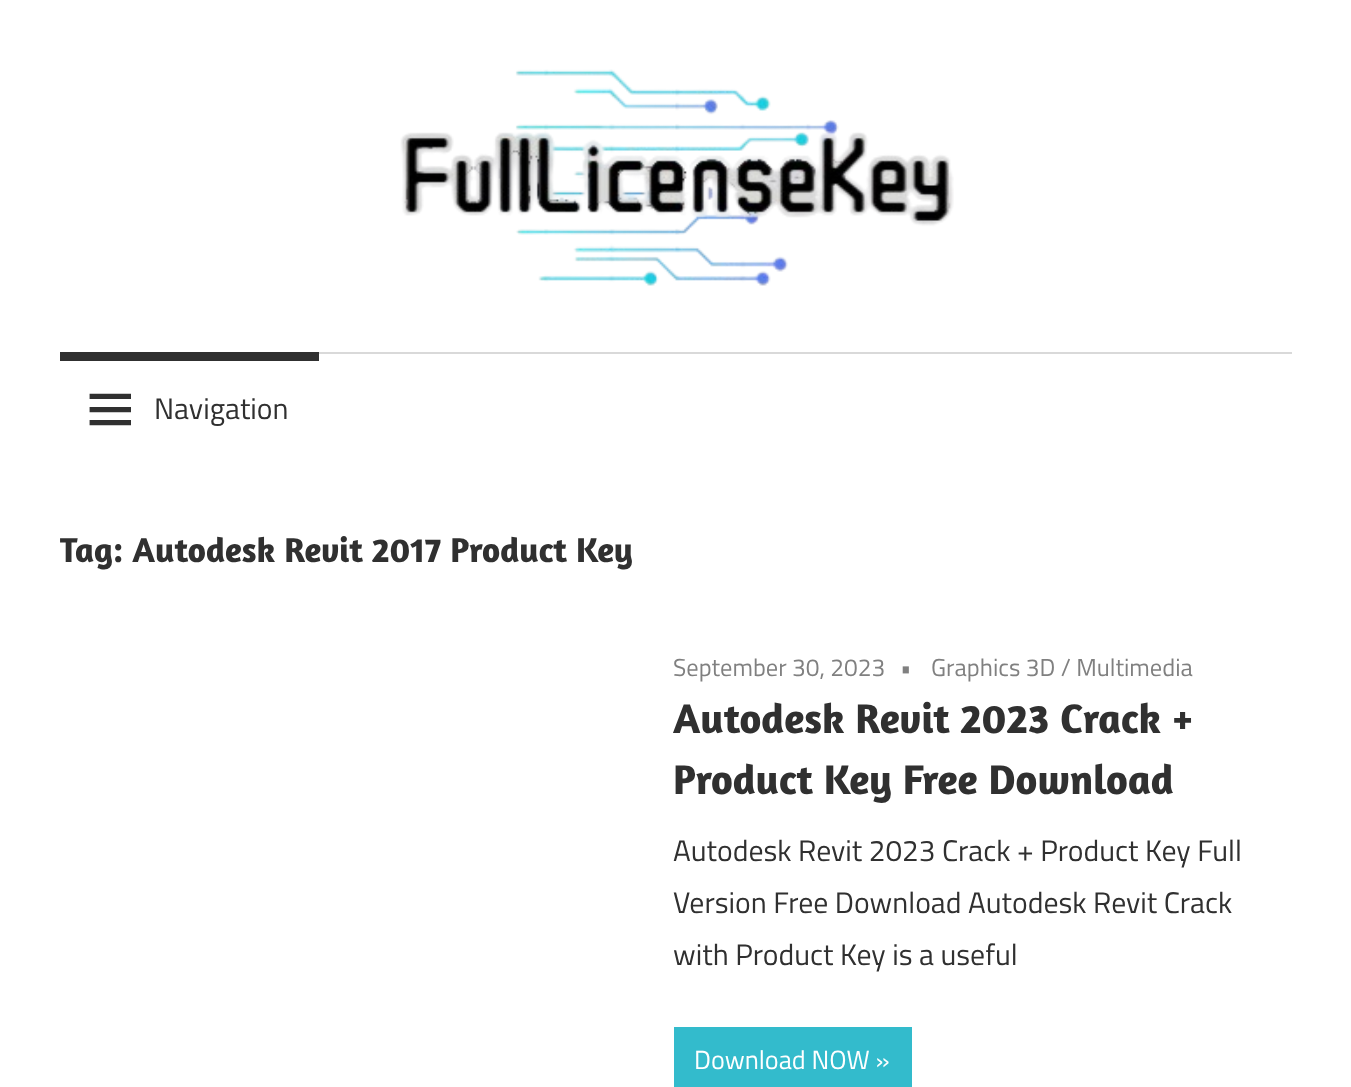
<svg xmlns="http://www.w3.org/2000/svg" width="1351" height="1087">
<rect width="100%" height="100%" fill="#fff"/>
<image x="400" y="69" width="554" height="217" href="media/1.png"/>
<rect x="319" y="352" width="973" height="2" fill="#d9d9d9"/>
<rect x="60" y="352" width="259" height="9" fill="#303030"/>
<image x="89" y="393" width="42" height="33" href="media/2.png"/>
<text x="154" y="419" style="font-family:Titillium Web;font-size:29.75px;fill:#303030">Navigation</text>
<text x="60" y="562" style="font-family:Amaranth;font-size:35px;font-weight:bold;fill:#303030">Tag: Autodesk Revit 2017 Product Key</text>
<text x="673" y="676" style="font-family:Titillium Web;font-size:24.5px;fill:#808080">September 30, 2023</text>
<text x="900" y="676" style="font-family:Titillium Web;font-size:24.5px;fill:#808080">•</text>
<text x="931" y="676" style="font-family:Titillium Web;font-size:24.5px;fill:#808080">Graphics 3D / Multimedia</text>
<text x="673" y="733" style="font-family:Amaranth;font-size:42px;font-weight:bold;fill:#303030">Autodesk Revit 2023 Crack +</text>
<text x="673" y="794" style="font-family:Amaranth;font-size:42px;font-weight:bold;fill:#303030">Product Key Free Download</text>
<text x="673" y="861" style="font-family:Titillium Web;font-size:29.75px;fill:#303030">Autodesk Revit 2023 Crack + Product Key Full</text>
<text x="673" y="913" style="font-family:Titillium Web;font-size:29.75px;fill:#303030">Version Free Download Autodesk Revit Crack</text>
<text x="673" y="965" style="font-family:Titillium Web;font-size:29.75px;fill:#303030">with Product Key is a useful</text>
<rect x="674" y="1027" width="238" height="60" fill="#3bc"/>
<text x="694" y="1069" style="font-family:Titillium Web;font-size:26.25px;fill:#fff">Download NOW »</text>
</svg>
